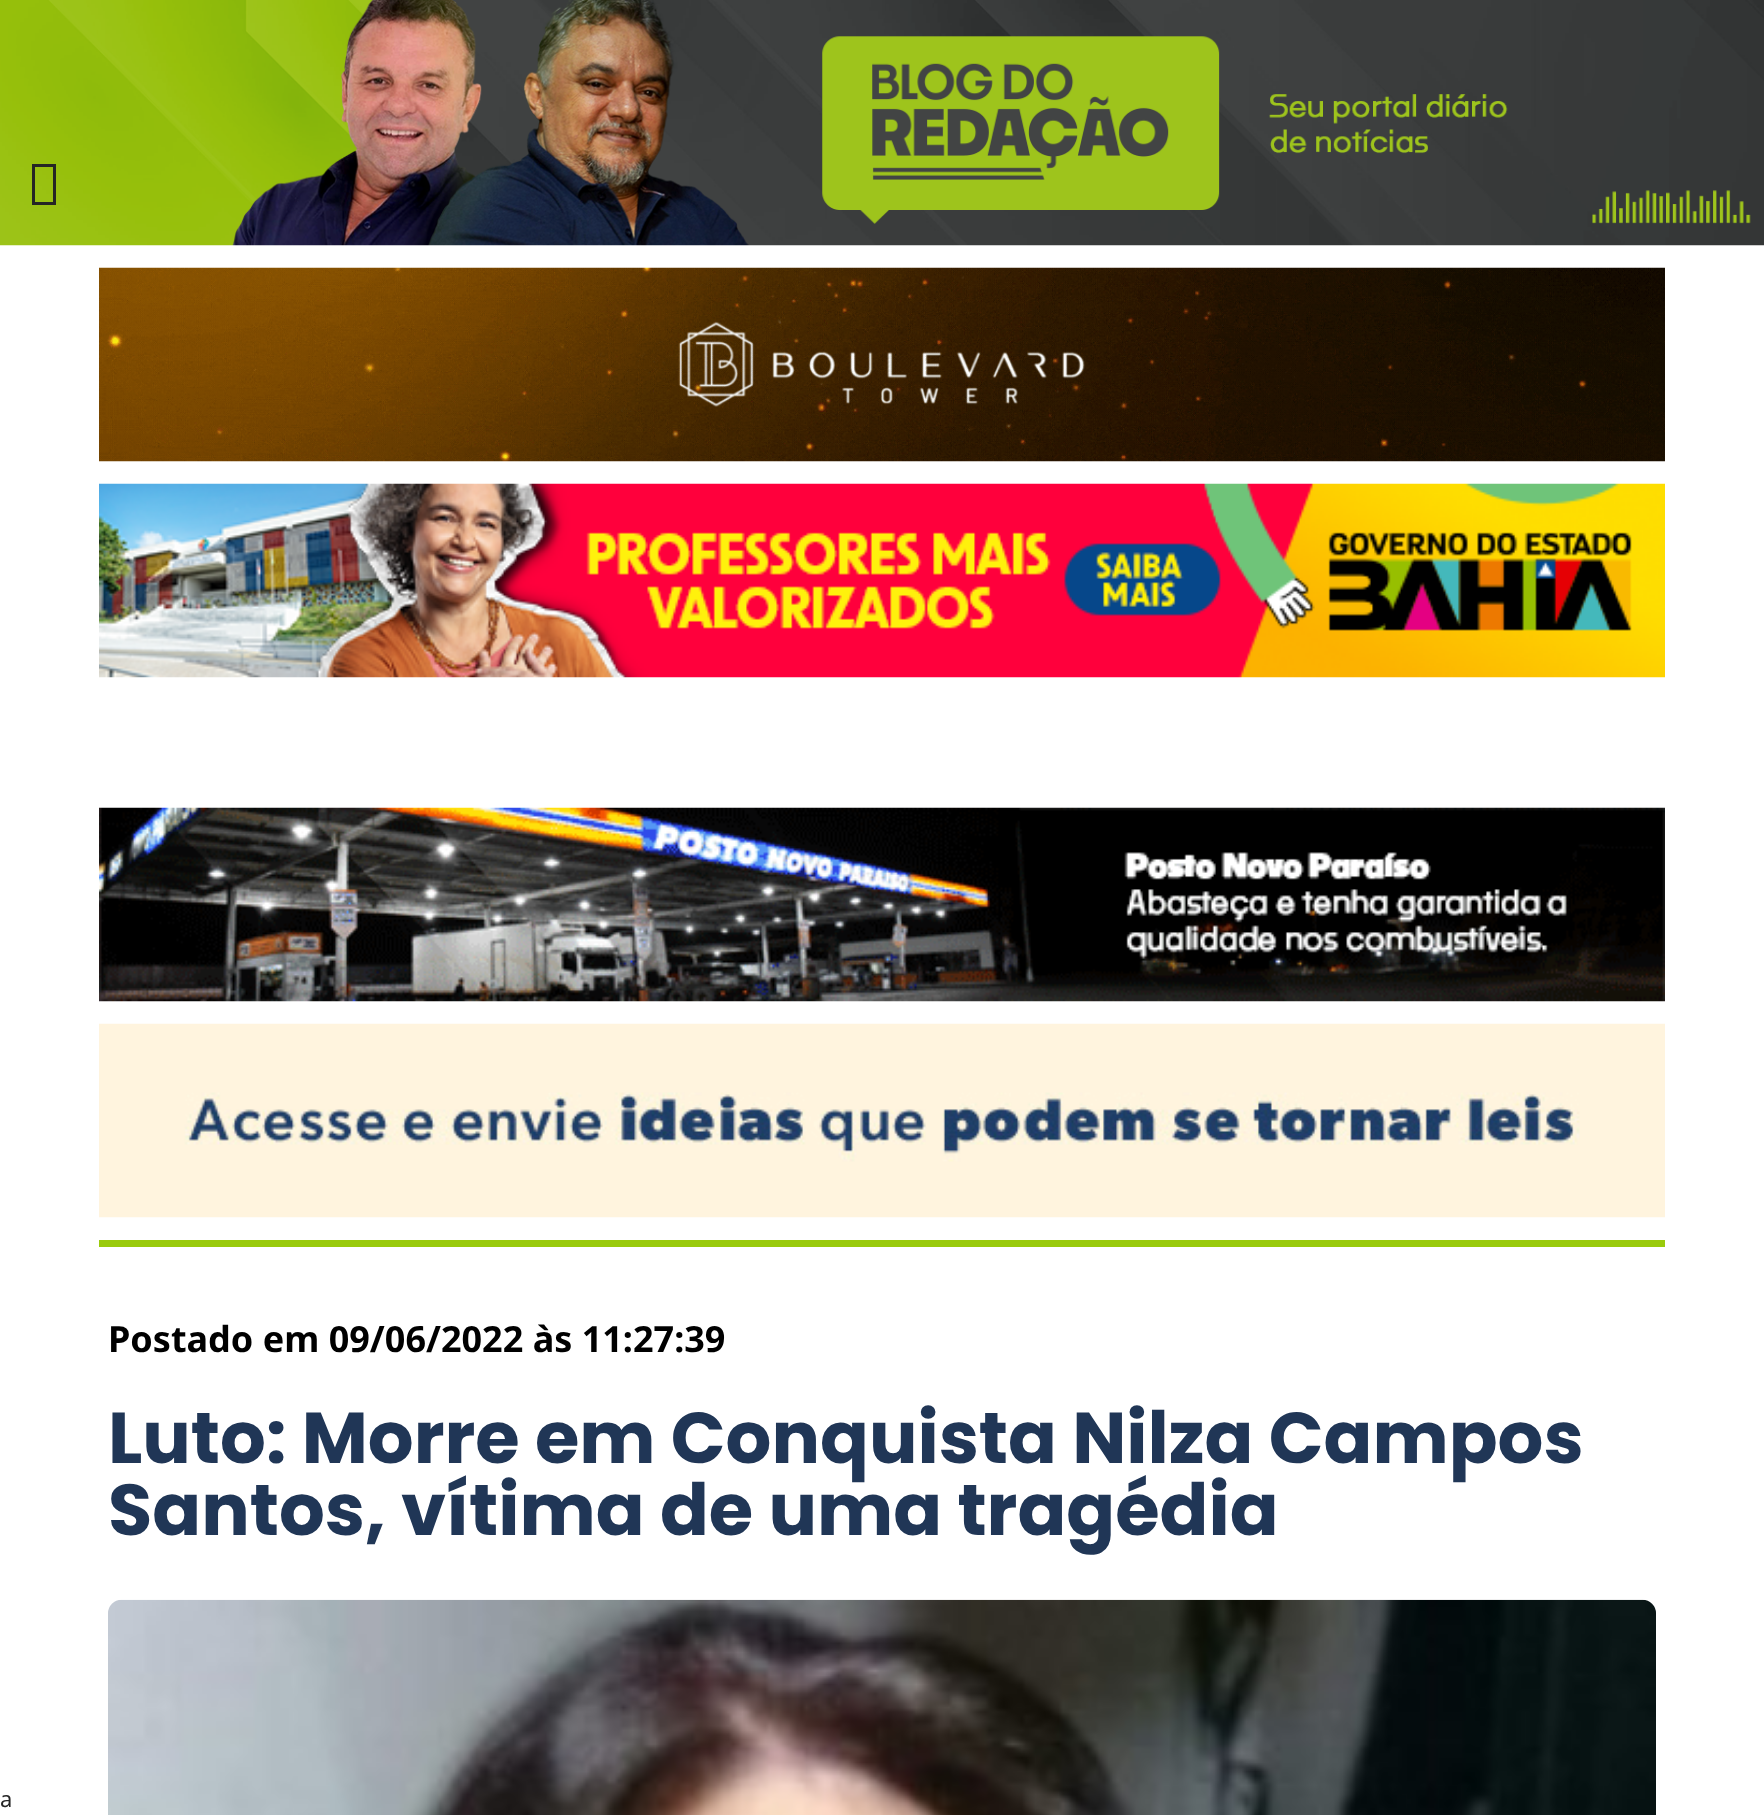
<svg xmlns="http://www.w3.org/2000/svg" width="1764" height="1815">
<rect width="100%" height="100%" fill="#fff"/>
<image x="0" y="0" width="1764" height="246" href="media/1.png"/>
<path d="M32 205v-41h24v41zm3-3h18v-35h-18z" fill="#252525"/>
<image x="99" y="267" width="1566" height="195" href="media/2.png"/>
<image x="99" y="483" width="1566" height="195" href="media/3.png"/>
<image x="99" y="807" width="1566" height="195" href="media/4.png"/>
<image x="99" y="1023" width="1566" height="195" href="media/5.png"/>
<rect x="99" y="1240" width="1566" height="7" fill="#9acb0c"/>
<text x="108" y="1352" style="font-family:Noto Sans;font-size:36px;font-weight:bold;fill:#000">Postado em 09/06/2022 às 11:27:39</text>
<text x="108" y="1463" style="font-family:Poppins;font-size:72px;font-weight:bold;fill:#203656">Luto: Morre em Conquista Nilza Campos</text>
<text x="108" y="1535" style="font-family:Poppins;font-size:72px;font-weight:bold;fill:#203656">Santos, vítima de uma tragédia</text>
<image x="108" y="1599" width="1548" height="216" href="media/6.png"/>
<text x="0" y="1807" style="font-family:Noto Sans;font-size:22px;fill:#252525">a</text>
</svg>
